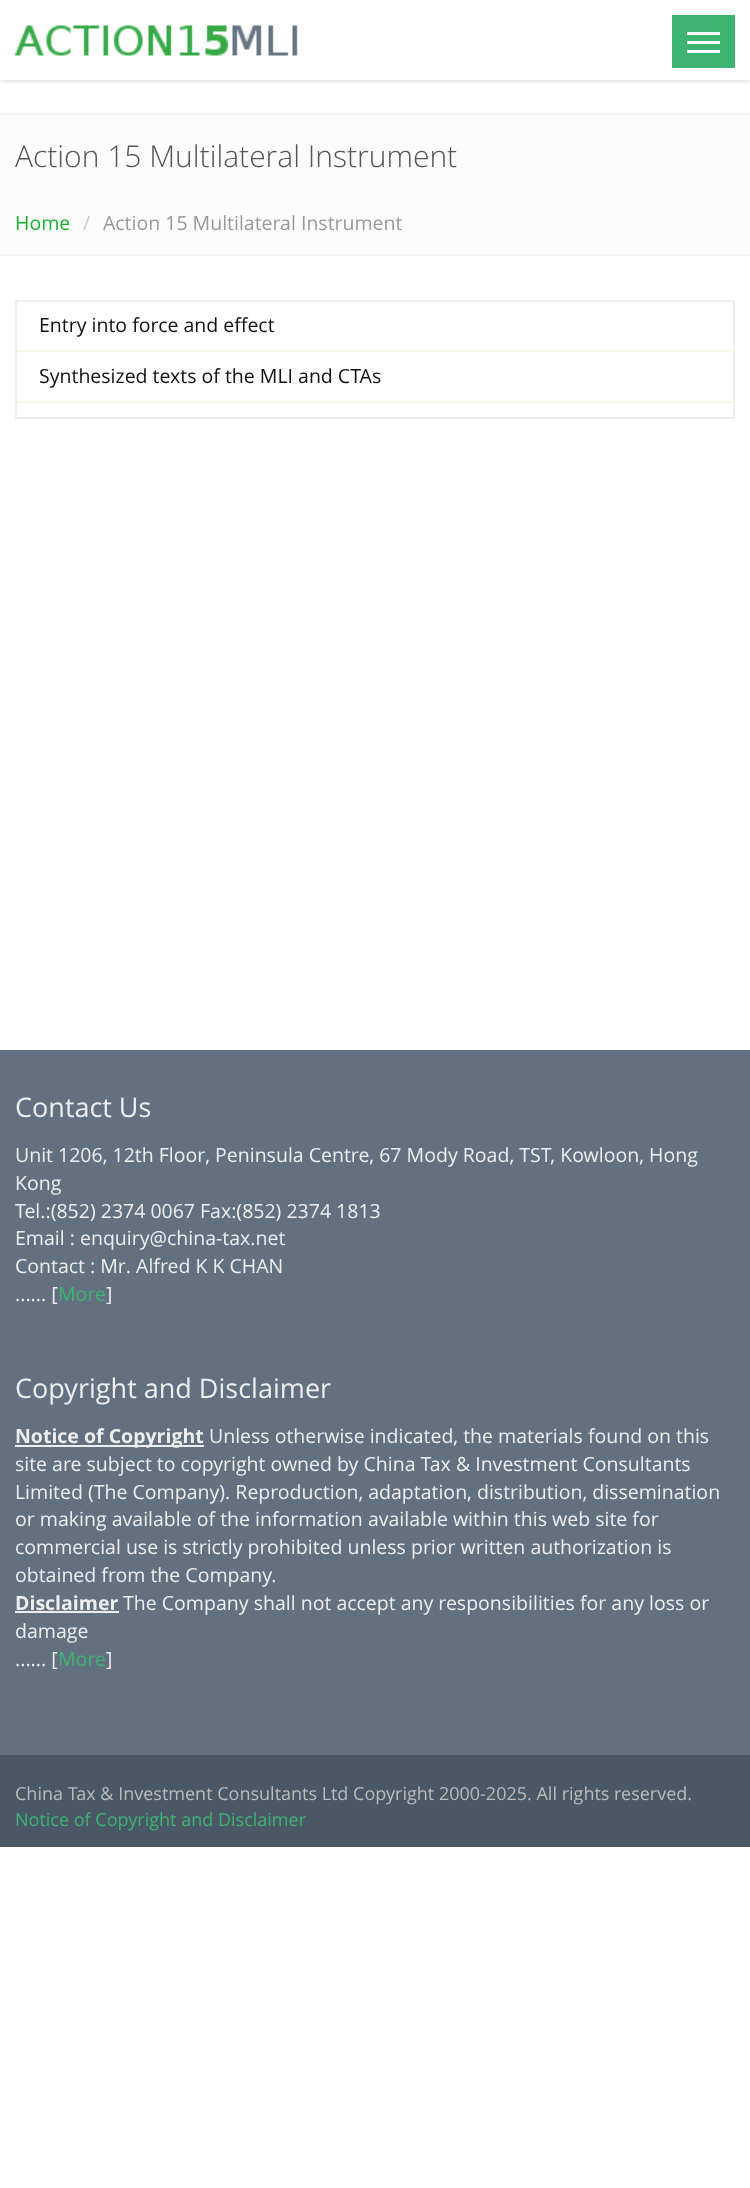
<svg xmlns="http://www.w3.org/2000/svg" width="750" height="2188">
<rect width="100%" height="100%" fill="#fff"/>
<rect y="2" width="750" height="79" fill="#ddd" filter="blur(2px)"/>
<rect width="750" height="80" fill="#fff"/>
<image x="15" y="25" width="283" height="31" href="media/1.png"/>
<rect x="672" y="15" width="63" height="53" fill="#3cb371"/>
<rect x="687" y="32" width="33" height="3" fill="#fff"/>
<rect x="687" y="41" width="33" height="3" fill="#fff"/>
<rect x="687" y="50" width="33" height="3" fill="#fff"/>
<rect y="115" width="750" height="139" fill="#fcfcfc"/>
<rect y="113" width="750" height="2" fill="#f5f5f5"/>
<rect y="254" width="750" height="2" fill="#f5f5f5"/>
<text x="15" y="167" style="font-family:Open Sans;font-size:30px;font-weight:300;fill:#555">Action 15 Multilateral Instrument</text>
<text x="15" y="230" style="font-family:Open Sans;font-size:19.5px;fill:#17b22f">Home</text>
<text x="83" y="230" style="font-family:Open Sans;font-size:19.5px;fill:#ccc">/</text>
<text x="103" y="230" style="font-family:Open Sans;font-size:19.5px;fill:#999">Action 15 Multilateral Instrument</text>
<rect x="16" y="301" width="718" height="117" fill="none" stroke="#eee" stroke-width="2"/>
<rect x="17" y="350" width="717" height="2" fill="#f5f9e7"/>
<text x="39" y="332" style="font-family:Open Sans;font-size:19.5px;fill:#111">Entry into force and effect</text>
<rect x="17" y="401" width="717" height="2" fill="#f5f9e7"/>
<text x="39" y="383" style="font-family:Open Sans;font-size:19.5px;fill:#111">Synthesized texts of the MLI and CTAs</text>
<rect y="1050" width="750" height="705" fill="#62707f"/>
<text x="15" y="1117" style="font-family:Open Sans;font-size:27px;fill:#eee">Contact Us</text>
<text x="15" y="1162" style="font-family:Open Sans;font-size:19.5px;fill:#eee">Unit 1206, 12th Floor, Peninsula Centre, 67 Mody Road, TST, Kowloon, Hong</text>
<text x="15" y="1190" style="font-family:Open Sans;font-size:19.5px;fill:#eee">Kong</text>
<text x="15" y="1218" style="font-family:Open Sans;font-size:19.5px;fill:#eee">Tel.:(852) 2374 0067 Fax:(852) 2374 1813</text>
<text x="15" y="1245" style="font-family:Open Sans;font-size:19.5px;fill:#eee">Email : enquiry@china-tax.net</text>
<text x="15" y="1273" style="font-family:Open Sans;font-size:19.5px;fill:#eee">Contact : Mr. Alfred K K CHAN</text>
<text x="15" y="1301" style="font-family:Open Sans;font-size:19.5px;fill:#eee">...... [</text>
<text x="58" y="1301" style="font-family:Open Sans;font-size:19.5px;fill:#3cb371">More</text>
<text x="106" y="1301" style="font-family:Open Sans;font-size:19.5px;fill:#eee">]</text>
<text x="15" y="1398" style="font-family:Open Sans;font-size:27px;fill:#eee">Copyright and Disclaimer</text>
<rect x="15" y="1445" width="189" height="2" fill="#eee"/>
<text x="15" y="1443" style="font-family:Open Sans;font-size:19.5px;font-weight:bold;fill:#eee">Notice of Copyright</text>
<text x="209" y="1443" style="font-family:Open Sans;font-size:19.5px;fill:#eee">Unless otherwise indicated, the materials found on this</text>
<text x="15" y="1471" style="font-family:Open Sans;font-size:19.5px;fill:#eee">site are subject to copyright owned by China Tax &amp; Investment Consultants</text>
<text x="15" y="1499" style="font-family:Open Sans;font-size:19.5px;fill:#eee">Limited (The Company). Reproduction, adaptation, distribution, dissemination</text>
<text x="15" y="1526" style="font-family:Open Sans;font-size:19.5px;fill:#eee">or making available of the information available within this web site for</text>
<text x="15" y="1554" style="font-family:Open Sans;font-size:19.5px;fill:#eee">commercial use is strictly prohibited unless prior written authorization is</text>
<text x="15" y="1582" style="font-family:Open Sans;font-size:19.5px;fill:#eee">obtained from the Company.</text>
<text x="15" y="1610" style="font-family:Open Sans;font-size:19.5px;font-weight:bold;fill:#eee">Disclaimer</text>
<rect x="15" y="1611" width="104" height="2" fill="#eee"/>
<text x="123" y="1610" style="font-family:Open Sans;font-size:19.5px;fill:#eee">The Company shall not accept any responsibilities for any loss or</text>
<text x="15" y="1638" style="font-family:Open Sans;font-size:19.5px;fill:#eee">damage</text>
<text x="15" y="1666" style="font-family:Open Sans;font-size:19.5px;fill:#eee">...... [</text>
<text x="58" y="1666" style="font-family:Open Sans;font-size:19.5px;fill:#3cb371">More</text>
<text x="106" y="1666" style="font-family:Open Sans;font-size:19.5px;fill:#eee">]</text>
<rect y="1755" width="750" height="92" fill="#4a5866"/>
<text x="15" y="1800" style="font-family:Open Sans;font-size:18px;fill:#bbb">China Tax &amp; Investment Consultants Ltd Copyright 2000-2025. All rights reserved.</text>
<text x="15" y="1826" style="font-family:Open Sans;font-size:18px;fill:#3cb371">Notice of Copyright and Disclaimer</text>
</svg>
